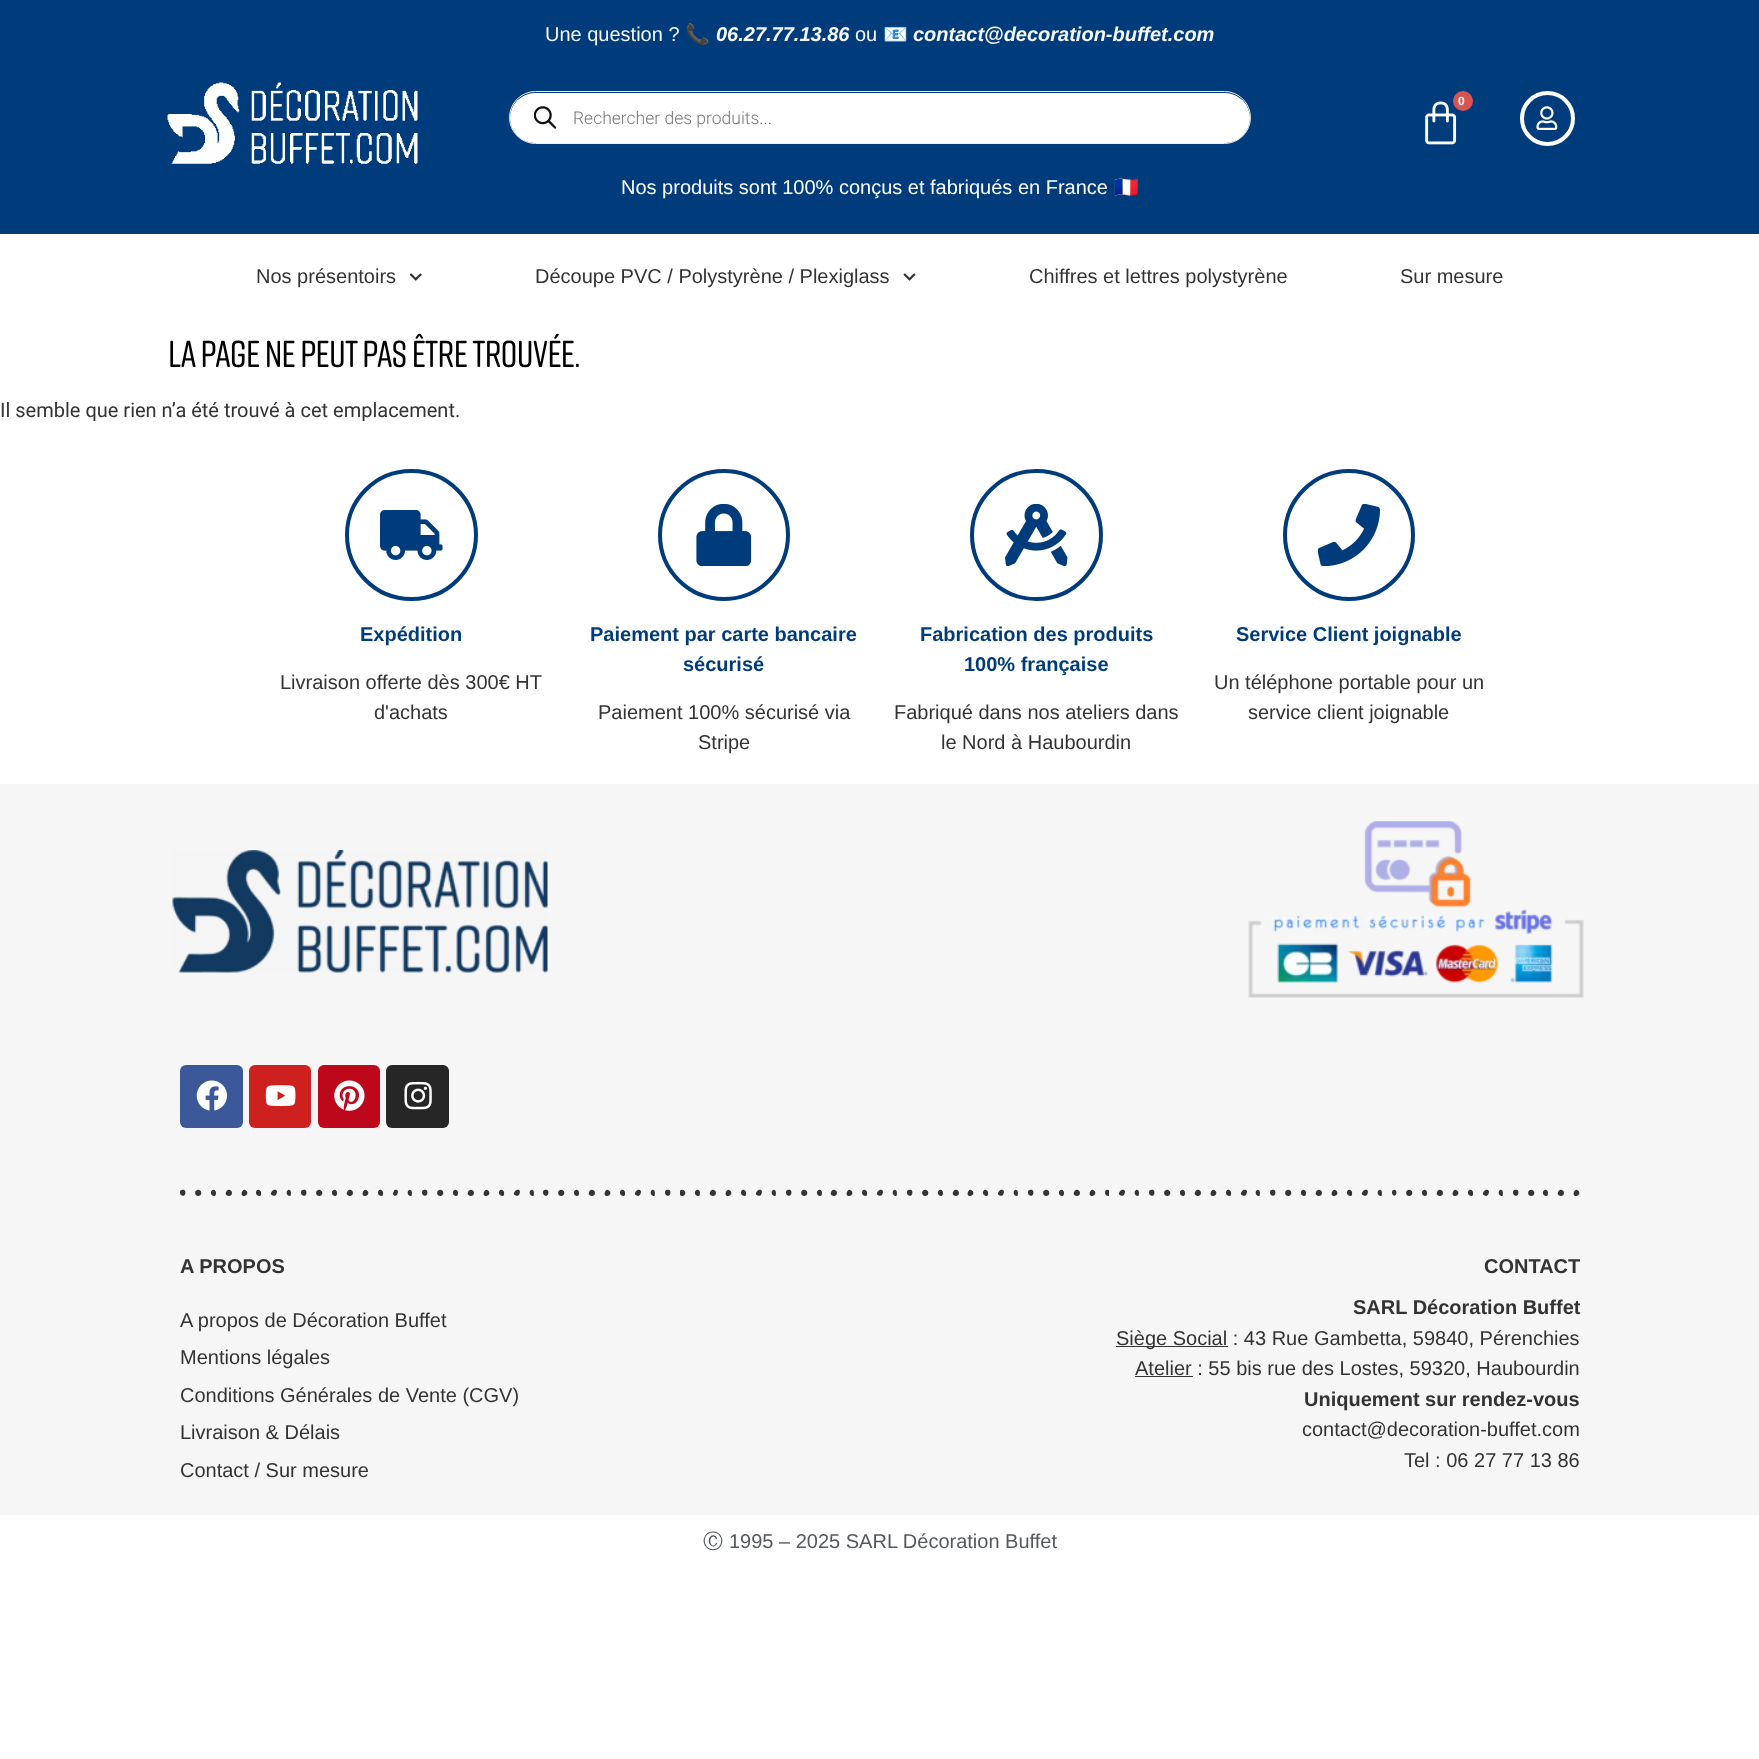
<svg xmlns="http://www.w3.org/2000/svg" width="1759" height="1759">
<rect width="100%" height="100%" fill="#fff"/>
<rect width="1759" height="234" fill="#003c7b"/>
<image x="167" y="82" width="251" height="82" href="media/1.png"/>
<text x="545" y="41" style="font-family:Liberation Sans;font-size:20px;fill:#f6f6f6">Une question ?</text>
<text x="685" y="41" style="font-family:Noto Color Emoji;font-size:20px;fill:#f6f6f6">📞</text>
<text x="716" y="41" style="font-family:Liberation Sans;font-size:20px;font-weight:bold;font-style:italic;fill:#f6f6f6">06.27.77.13.86</text>
<text x="855" y="41" style="font-family:Liberation Sans;font-size:20px;fill:#f6f6f6">ou</text>
<text x="883" y="41" style="font-family:Noto Color Emoji;font-size:20px;fill:#f6f6f6">📧</text>
<text x="913" y="41" style="font-family:Liberation Sans;font-size:20px;font-weight:bold;font-style:italic;fill:#f6f6f6">contact@decoration-buffet.com</text>
<rect x="509.5" y="91.5" width="741" height="52" rx="26" fill="none" stroke="#eee"/>
<rect x="510" y="93" width="740" height="50" rx="25" fill="#fff"/>
<image x="534" y="106" width="22" height="23" href="media/2.png"/>
<text x="573" y="124" style="font-family:Roboto;font-size:17.5px;font-weight:300;fill:#777">Rechercher des produits...</text>
<text x="621" y="194" style="font-family:Liberation Sans;font-size:20px;fill:#fff">Nos produits sont 100% conçus et fabriqués en France</text>
<text x="1114" y="194" style="font-family:Noto Color Emoji;font-size:20px;fill:#fff">🇫🇷</text>
<image x="1425" y="101" width="32" height="44" href="media/3.png"/>
<circle cx="1463" cy="101" r="10" fill="#d9534f"/>
<text x="1458" y="105" style="font-family:Liberation Sans;font-size:12px;font-weight:bold;fill:#fff">0</text>
<circle cx="1547.5" cy="118.5" r="25.5" fill="none" stroke="#fff" stroke-width="4"/>
<image x="1536" y="106" width="22" height="24" href="media/4.png"/>
<text x="256" y="283" style="font-family:Liberation Sans;font-size:20px;fill:#333">Nos présentoirs</text>
<image x="409" y="273" width="13" height="8" href="media/5.png"/>
<text x="535" y="283" style="font-family:Liberation Sans;font-size:20px;fill:#333">Découpe PVC / Polystyrène / Plexiglass</text>
<image x="903" y="273" width="13" height="8" href="media/6.png"/>
<text x="1029" y="283" style="font-family:Liberation Sans;font-size:20px;fill:#333">Chiffres et lettres polystyrène</text>
<text x="1400" y="283" style="font-family:Liberation Sans;font-size:20px;fill:#333">Sur mesure</text>
<text x="168" y="367" style="font-family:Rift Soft;font-size:37.5px;font-weight:500;letter-spacing:-0.75px;fill:#000">LA PAGE NE PEUT PAS ÊTRE TROUVÉE.</text>
<text x="0" y="417" style="font-family:Roboto;font-size:20px;fill:#333">Il semble que rien n’a été trouvé à cet emplacement.</text>
<rect x="347" y="471" width="129" height="128" rx="64" fill="none" stroke="#003c7b" stroke-width="4"/>
<image x="380" y="510" width="63" height="50" href="media/7.png"/>
<text x="360" y="641" style="font-family:Liberation Sans;font-size:20px;font-weight:bold;fill:#003c7b">Expédition</text>
<text x="280" y="689" style="font-family:Liberation Sans;font-size:20px;fill:#333">Livraison offerte dès 300€ HT</text>
<text x="374" y="719" style="font-family:Liberation Sans;font-size:20px;fill:#333">d'achats</text>
<circle cx="724" cy="535" r="64" fill="none" stroke="#003c7b" stroke-width="4"/>
<image x="696" y="504" width="56" height="62" href="media/8.png"/>
<text x="590" y="641" style="font-family:Liberation Sans;font-size:20px;font-weight:bold;fill:#003c7b">Paiement par carte bancaire</text>
<text x="683" y="671" style="font-family:Liberation Sans;font-size:20px;font-weight:bold;fill:#003c7b">sécurisé</text>
<text x="598" y="719" style="font-family:Liberation Sans;font-size:20px;fill:#333">Paiement 100% sécurisé via</text>
<text x="698" y="749" style="font-family:Liberation Sans;font-size:20px;fill:#333">Stripe</text>
<rect x="972" y="471" width="129" height="128" rx="64" fill="none" stroke="#003c7b" stroke-width="4"/>
<image x="1005" y="504" width="63" height="62" href="media/9.png"/>
<text x="920" y="641" style="font-family:Liberation Sans;font-size:20px;font-weight:bold;fill:#003c7b">Fabrication des produits</text>
<text x="964" y="671" style="font-family:Liberation Sans;font-size:20px;font-weight:bold;fill:#003c7b">100% française</text>
<text x="894" y="719" style="font-family:Liberation Sans;font-size:20px;fill:#333">Fabriqué dans nos ateliers dans</text>
<text x="941" y="749" style="font-family:Liberation Sans;font-size:20px;fill:#333">le Nord à Haubourdin</text>
<circle cx="1349" cy="535" r="64" fill="none" stroke="#003c7b" stroke-width="4"/>
<image x="1318" y="504" width="62" height="62" href="media/10.png"/>
<text x="1236" y="641" style="font-family:Liberation Sans;font-size:20px;font-weight:bold;fill:#003c7b">Service Client joignable</text>
<text x="1214" y="689" style="font-family:Liberation Sans;font-size:20px;fill:#333">Un téléphone portable pour un</text>
<text x="1248" y="719" style="font-family:Liberation Sans;font-size:20px;fill:#333">service client joignable</text>
<rect y="784" width="1759" height="731" fill="#f6f6f6"/>
<image x="172" y="850" width="376" height="123" href="media/11.png"/>
<image x="1248" y="821" width="336" height="177" href="media/12.png"/>
<rect x="180" y="1065" width="63" height="63" rx="6" fill="#3b5998"/>
<image x="196" y="1080" width="31" height="31" href="media/13.png"/>
<rect x="249" y="1065" width="62" height="63" rx="6" fill="#cd201f"/>
<image x="265" y="1085" width="31" height="22" href="media/14.png"/>
<rect x="318" y="1065" width="62" height="63" rx="6" fill="#bd081c"/>
<image x="334" y="1080" width="31" height="31" href="media/15.png"/>
<rect x="386" y="1065" width="63" height="63" rx="6" fill="#262626"/>
<image x="404" y="1081" width="28" height="29" href="media/16.png"/>
<image x="180" y="1189" width="1400" height="7" href="media/17.png"/>
<text x="180" y="1273" style="font-family:Liberation Sans;font-size:20px;font-weight:bold;fill:#333">A PROPOS</text>
<text x="180" y="1327" style="font-family:Liberation Sans;font-size:20px;fill:#333">A propos de Décoration Buffet</text>
<text x="180" y="1364" style="font-family:Liberation Sans;font-size:20px;fill:#333">Mentions légales</text>
<text x="180" y="1402" style="font-family:Liberation Sans;font-size:20px;fill:#333">Conditions Générales de Vente (CGV)</text>
<text x="180" y="1439" style="font-family:Liberation Sans;font-size:20px;fill:#333">Livraison &amp; Délais</text>
<text x="180" y="1477" style="font-family:Liberation Sans;font-size:20px;fill:#333">Contact / Sur mesure</text>
<text x="1484" y="1273" style="font-family:Liberation Sans;font-size:20px;font-weight:bold;fill:#333">CONTACT</text>
<text x="1353" y="1314" style="font-family:Liberation Sans;font-size:20px;font-weight:bold;fill:#333">SARL Décoration Buffet</text>
<rect x="1116" y="1346" width="112" height="1" fill="#353434"/>
<text x="1116" y="1345" style="font-family:Liberation Sans;font-size:20px;fill:#333">Siège Social : 43 Rue Gambetta, 59840, Pérenchies</text>
<rect x="1135" y="1376" width="58" height="1" fill="#353434"/>
<text x="1135" y="1375" style="font-family:Liberation Sans;font-size:20px;fill:#333">Atelier : 55 bis rue des Lostes, 59320, Haubourdin</text>
<text x="1304" y="1406" style="font-family:Liberation Sans;font-size:20px;font-weight:bold;fill:#333">Uniquement sur rendez-vous</text>
<text x="1302" y="1436" style="font-family:Liberation Sans;font-size:20px;fill:#333">contact@decoration-buffet.com</text>
<text x="1404" y="1467" style="font-family:Liberation Sans;font-size:20px;fill:#333">Tel : 06 27 77 13 86</text>
<text x="703" y="1548" style="font-family:WenQuanYi Zen Hei;font-size:20px;font-weight:500;fill:#54595f">Ⓒ</text>
<text x="729" y="1548" style="font-family:Liberation Sans;font-size:20px;fill:#54595f">1995 – 2025 SARL Décoration Buffet</text>
</svg>
